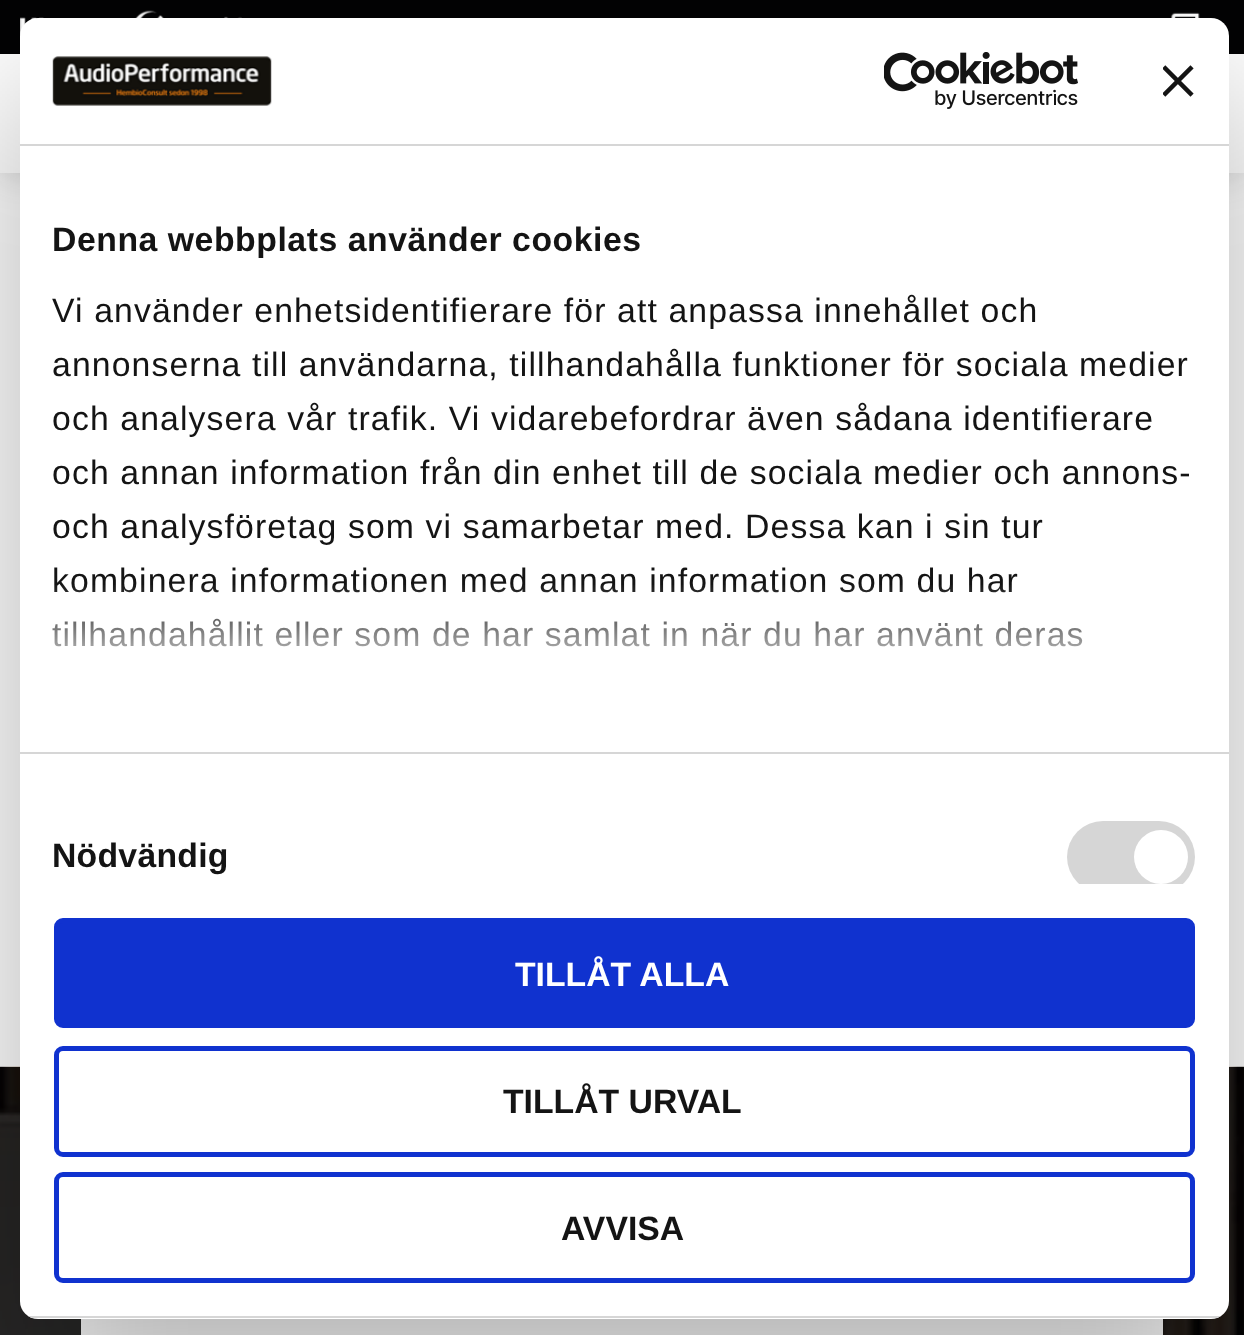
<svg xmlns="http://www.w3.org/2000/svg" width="1244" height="1335">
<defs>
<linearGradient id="g1" gradientUnits="userSpaceOnUse" x1="609" y1="752" x2="609" y2="583"><stop offset="0" stop-color="#fff"/><stop offset="0.5" stop-color="#fff" stop-opacity="0.8"/><stop offset="1" stop-color="#fff" stop-opacity="0"/></linearGradient>
<clipPath id="clip1"><rect x="20" y="146" width="1209" height="738"/></clipPath>
<clipPath id="clip2"><rect x="20" y="18" width="1209" height="1301" rx="18"/></clipPath>
</defs>
<rect width="100%" height="100%" fill="#fff"/>
<rect width="1244" height="173" fill="#03030433" filter="blur(18px)"/>
<rect y="54" width="1244" height="119" fill="#fff"/>
<rect width="1244" height="54" fill="#030304"/>
<image x="135" y="10" width="107" height="8" href="media/1.png"/>
<image x="20" y="17" width="24" height="19" href="media/2.png"/>
<image x="1171" y="12" width="29" height="6" href="media/3.png"/>
<rect y="1067" width="1244" height="268" fill="#030304"/>
<image x="0" y="1066" width="1244" height="269" href="media/4.png"/>
<rect x="81" y="1319" width="1082" height="16" fill="#fff"/>
<rect x="20" y="90" width="1209" height="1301" rx="18" fill="#0000004d" filter="blur(76.5px)"/>
<rect x="20" y="18" width="1209" height="1301" rx="18" fill="#fff"/>
<rect x="20" y="144" width="1209" height="2" fill="#d6d6d6"/>
<image x="52" y="56" width="220" height="50" href="media/5.png"/>
<image x="884" y="52" width="194" height="57" href="media/6.png"/>
<image x="1163" y="65" width="31" height="32" href="media/7.png"/>
<rect x="20" y="752" width="1209" height="2" fill="#d6d6d6"/>
<text x="52" y="251" style="font-family:Liberation Sans;font-size:33.75px;font-weight:bold;letter-spacing:0.55px;fill:#141414">Denna webbplats använder cookies</text>
<text x="52" y="322" style="font-family:Liberation Sans;font-size:33.75px;letter-spacing:1.12px;fill:#141414">Vi använder enhetsidentifierare för att anpassa innehållet och</text>
<text x="52" y="376" style="font-family:Liberation Sans;font-size:33.75px;letter-spacing:1.12px;fill:#141414">annonserna till användarna, tillhandahålla funktioner för sociala medier</text>
<text x="52" y="430" style="font-family:Liberation Sans;font-size:33.75px;letter-spacing:1.12px;fill:#141414">och analysera vår trafik. Vi vidarebefordrar även sådana identifierare</text>
<text x="52" y="484" style="font-family:Liberation Sans;font-size:33.75px;letter-spacing:1.12px;fill:#141414">och annan information från din enhet till de sociala medier och annons-</text>
<text x="52" y="538" style="font-family:Liberation Sans;font-size:33.75px;letter-spacing:1.12px;fill:#141414">och analysföretag som vi samarbetar med. Dessa kan i sin tur</text>
<text x="52" y="592" style="font-family:Liberation Sans;font-size:33.75px;letter-spacing:1.12px;fill:#141414">kombinera informationen med annan information som du har</text>
<text x="52" y="646" style="font-family:Liberation Sans;font-size:33.75px;letter-spacing:1.12px;fill:#141414">tillhandahållit eller som de har samlat in när du har använt deras</text>
<rect x="52" y="585" width="1031" height="62" fill="url(#g1)"/>
<text x="52" y="867" style="font-family:Liberation Sans;font-size:33.75px;font-weight:bold;letter-spacing:0.25px;fill:#141414">Nödvändig</text>
<g clip-path="url(#clip1)">
<rect x="1067" y="821" width="128" height="72" rx="36" fill="#d6d6d6"/>
</g>
<circle cx="1161" cy="857" r="27" fill="#fff"/>
<g clip-path="url(#clip2)">
<rect x="20" y="1316" width="1209" height="2" fill="#d6d6d6"/>
</g>
<rect x="56.5" y="920.5" width="1136" height="105" rx="6.5" fill="#1032cf" stroke="#1032cf" stroke-width="5"/>
<text x="515" y="986" style="font-family:Liberation Sans;font-size:33.75px;font-weight:bold;fill:#fff">TILLÅT ALLA</text>
<rect x="56.5" y="1048.5" width="1136" height="106" rx="6.5" fill="none" stroke="#1032cf" stroke-width="5"/>
<text x="503" y="1113" style="font-family:Liberation Sans;font-size:33.75px;font-weight:bold;fill:#141414">TILLÅT URVAL</text>
<rect x="56.5" y="1174.5" width="1136" height="106" rx="6.5" fill="none" stroke="#1032cf" stroke-width="5"/>
<text x="561" y="1240" style="font-family:Liberation Sans;font-size:33.75px;font-weight:bold;fill:#141414">AVVISA</text>
</svg>
